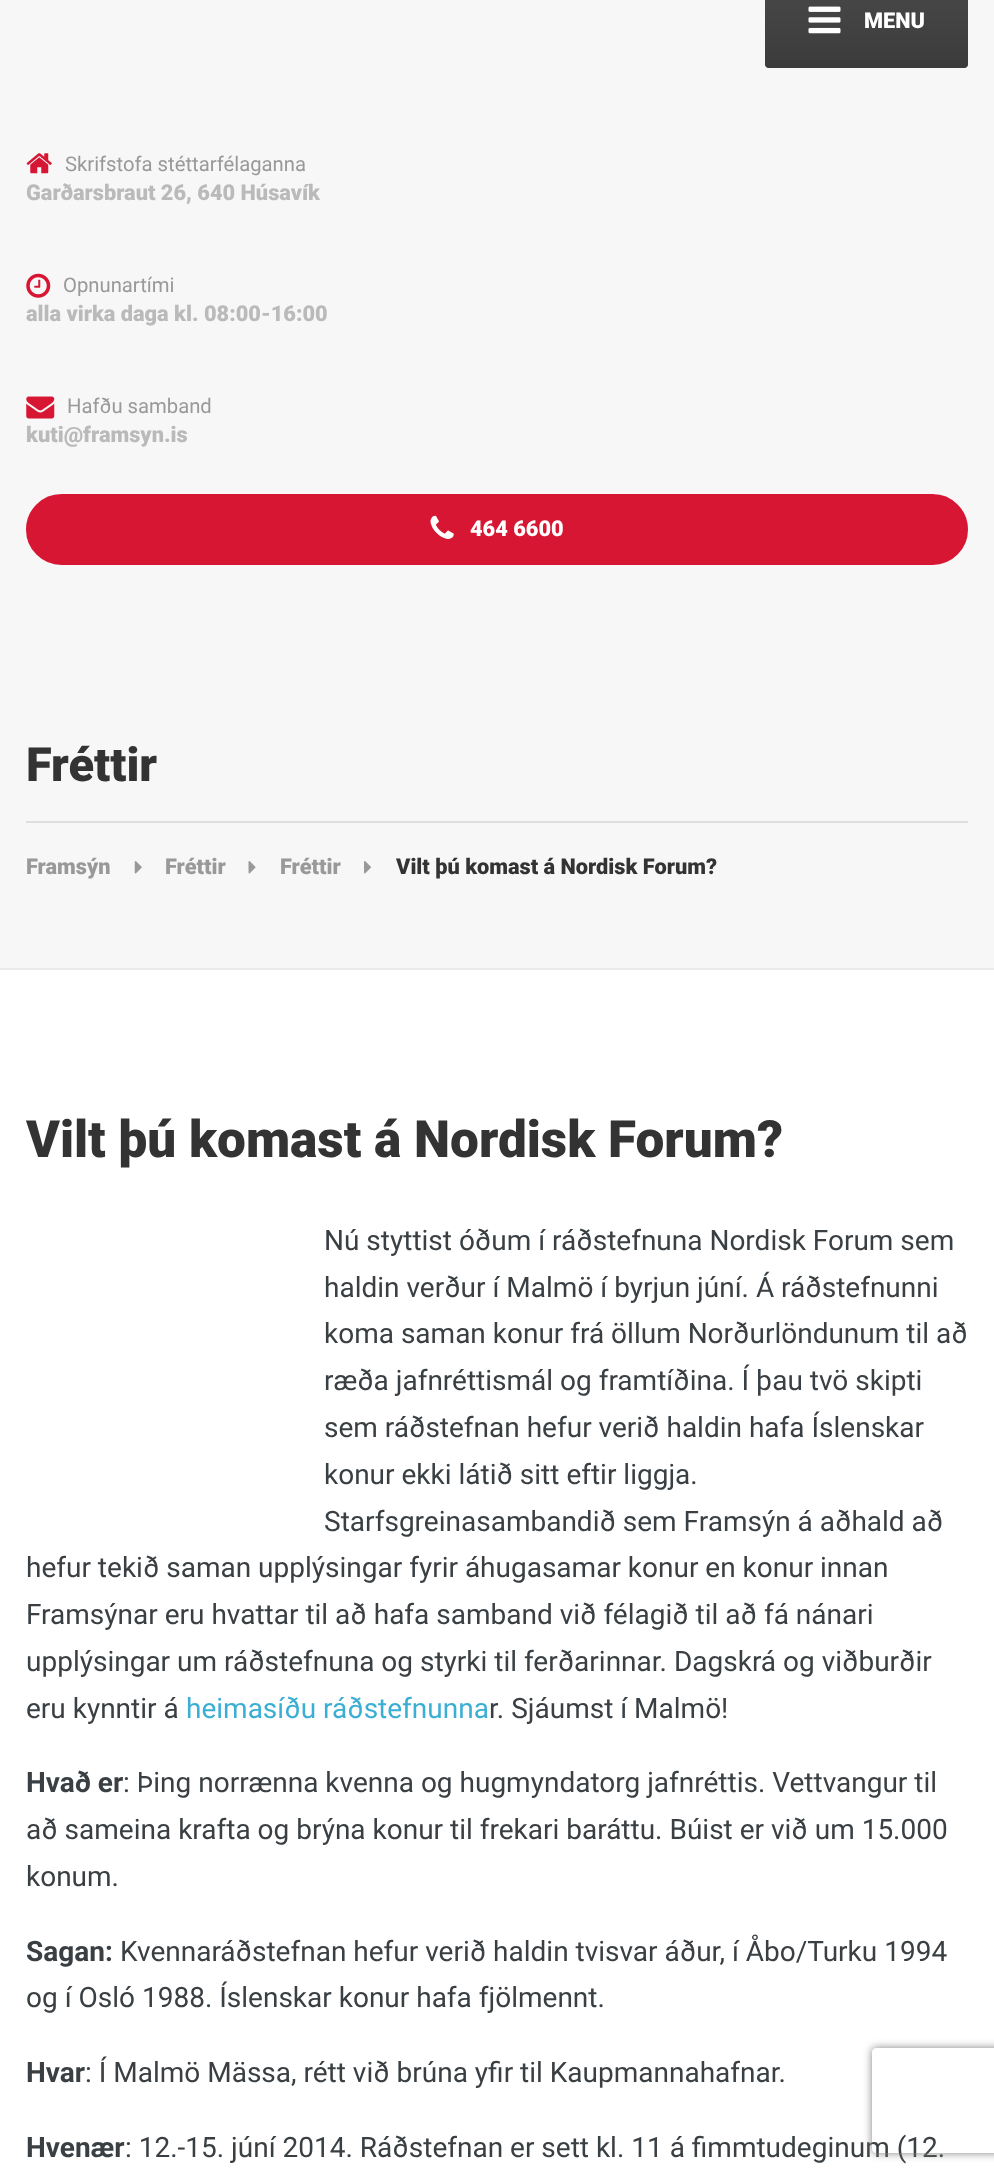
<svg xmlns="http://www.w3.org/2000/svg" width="994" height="2177">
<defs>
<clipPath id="clip1"><rect x="765" y="-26" width="203" height="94" rx="4"/></clipPath>
<linearGradient id="g1" gradientUnits="userSpaceOnUse" x1="866" y1="-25" x2="866" y2="68"><stop offset="0" stop-color="#4a4a4a"/><stop offset="1" stop-color="#3b3b3b"/></linearGradient>
<clipPath id="clip2"><path d="M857 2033h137v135h-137zm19 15h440c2 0 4 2 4 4v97c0 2-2 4-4 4h-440c-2 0-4-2-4-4v-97c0-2 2-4 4-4z" clip-rule="evenodd"/></clipPath>
</defs>
<rect width="100%" height="100%" fill="#fff"/>
<rect width="994" height="968" fill="#f7f7f7"/>
<rect x="765" y="-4" width="203" height="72" rx="4" fill="#4a4a4a"/>
<g clip-path="url(#clip1)">
<path d="M765-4h203v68c0 2-2 4-4 4h-195c-2 0-4-2-4-4z" fill="url(#g1)"/>
</g>
<image x="808" y="6" width="33" height="28" href="media/1.png"/>
<text x="864" y="28" style="font-family:Roboto;font-size:21.75px;font-weight:900;fill:#fff">MENU</text>
<image x="26" y="153" width="26" height="21" href="media/2.png"/>
<text x="65" y="171" style="font-family:Roboto;font-size:20.25px;fill:#999">Skrifstofa stéttarfélaganna</text>
<text x="26" y="200" style="font-family:Roboto;font-size:21.75px;font-weight:900;fill:#bababa">Garðarsbraut 26, 640 Húsavík</text>
<image x="26" y="273" width="25" height="25" href="media/3.png"/>
<text x="63" y="292" style="font-family:Roboto;font-size:20.25px;fill:#999">Opnunartími</text>
<text x="26" y="321" style="font-family:Roboto;font-size:21.75px;font-weight:900;fill:#bababa">alla virka daga kl. 08:00-16:00</text>
<image x="26" y="396" width="29" height="23" href="media/4.png"/>
<text x="67" y="413" style="font-family:Roboto;font-size:20.25px;fill:#999">Hafðu samband</text>
<text x="26" y="442" style="font-family:Roboto;font-size:21.75px;font-weight:900;fill:#bababa">kuti@framsyn.is</text>
<rect x="27" y="495" width="940" height="69" rx="34.5" fill="#d71634" stroke="#d71634" stroke-width="2"/>
<image x="430" y="515" width="24" height="24" href="media/5.png"/>
<text x="470" y="536" style="font-family:Roboto;font-size:21.75px;font-weight:900;fill:#fff">464 6600</text>
<rect y="968" width="994" height="2" fill="#eaeaea"/>
<text x="26" y="781" style="font-family:Roboto;font-size:47px;font-weight:900;fill:#333">Fréttir</text>
<rect x="26" y="821" width="942" height="2" fill="#dedede"/>
<text x="26" y="874" style="font-family:Roboto;font-size:21.75px;font-weight:900;fill:#999">Framsýn</text>
<image x="134" y="861" width="8" height="13" href="media/6.png"/>
<text x="165" y="874" style="font-family:Roboto;font-size:21.75px;font-weight:900;fill:#999">Fréttir</text>
<image x="248" y="861" width="8" height="13" href="media/7.png"/>
<text x="280" y="874" style="font-family:Roboto;font-size:21.75px;font-weight:900;fill:#999">Fréttir</text>
<image x="364" y="861" width="7" height="13" href="media/8.png"/>
<text x="396" y="874" style="font-family:Roboto;font-size:21.75px;font-weight:900;fill:#333">Vilt þú komast á Nordisk Forum?</text>
<text x="26" y="1157" style="font-family:Roboto;font-size:51.3px;font-weight:900;fill:#333">Vilt þú komast á Nordisk Forum?</text>
<text x="324" y="1250" style="font-family:Roboto;font-size:28px;fill:#393f42">Nú styttist óðum í ráðstefnuna Nordisk Forum sem</text>
<text x="324" y="1297" style="font-family:Roboto;font-size:28px;fill:#393f42">haldin verður í Malmö í byrjun júní. Á ráðstefnunni</text>
<text x="324" y="1343" style="font-family:Roboto;font-size:28px;fill:#393f42">koma saman konur frá öllum Norðurlöndunum til að</text>
<text x="324" y="1390" style="font-family:Roboto;font-size:28px;fill:#393f42">ræða jafnréttismál og framtíðina. Í þau tvö skipti</text>
<text x="324" y="1437" style="font-family:Roboto;font-size:28px;fill:#393f42">sem ráðstefnan hefur verið haldin hafa Íslenskar</text>
<text x="324" y="1484" style="font-family:Roboto;font-size:28px;fill:#393f42">konur ekki látið sitt eftir liggja.</text>
<text x="324" y="1531" style="font-family:Roboto;font-size:28px;fill:#393f42">Starfsgreinasambandið sem Framsýn á aðhald að</text>
<text x="26" y="1577" style="font-family:Roboto;font-size:28px;fill:#393f42">hefur tekið saman upplýsingar fyrir áhugasamar konur en konur innan</text>
<text x="26" y="1624" style="font-family:Roboto;font-size:28px;fill:#393f42">Framsýnar eru hvattar til að hafa samband við félagið til að fá nánari</text>
<text x="26" y="1671" style="font-family:Roboto;font-size:28px;fill:#393f42">upplýsingar um ráðstefnuna og styrki til ferðarinnar. Dagskrá og viðburðir</text>
<text x="26" y="1718" style="font-family:Roboto;font-size:28px;fill:#393f42">eru kynntir á</text>
<text x="186" y="1718" style="font-family:Roboto;font-size:28px;fill:#3baed4">heimasíðu ráðstefnunna</text>
<text x="489" y="1718" style="font-family:Roboto;font-size:28px;fill:#393f42">r. Sjáumst í Malmö!</text>
<text x="26" y="1792" style="font-family:Roboto;font-size:28px;font-weight:bold;fill:#393f42">Hvað er</text>
<text x="123" y="1792" style="font-family:Roboto;font-size:28px;fill:#393f42">: Þing norrænna kvenna og hugmyndatorg jafnréttis. Vettvangur til</text>
<text x="26" y="1839" style="font-family:Roboto;font-size:28px;fill:#393f42">að sameina krafta og brýna konur til frekari baráttu. Búist er við um 15.000</text>
<text x="26" y="1886" style="font-family:Roboto;font-size:28px;fill:#393f42">konum.</text>
<text x="26" y="1961" style="font-family:Roboto;font-size:28px;font-weight:bold;fill:#393f42">Sagan:</text>
<text x="120" y="1961" style="font-family:Roboto;font-size:28px;fill:#393f42">Kvennaráðstefnan hefur verið haldin tvisvar áður, í Åbo/Turku 1994</text>
<text x="26" y="2007" style="font-family:Roboto;font-size:28px;fill:#393f42">og í Osló 1988. Íslenskar konur hafa fjölmennt.</text>
<text x="26" y="2082" style="font-family:Roboto;font-size:28px;font-weight:bold;fill:#393f42">Hvar</text>
<text x="85" y="2082" style="font-family:Roboto;font-size:28px;fill:#393f42">: Í Malmö Mässa, rétt við brúna yfir til Kaupmannahafnar.</text>
<text x="26" y="2157" style="font-family:Roboto;font-size:28px;font-weight:bold;fill:#393f42">Hvenær</text>
<text x="125" y="2157" style="font-family:Roboto;font-size:28px;fill:#393f42">: 12.-15. júní 2014. Ráðstefnan er sett kl. 11 á fimmtudeginum (12.</text>
<g clip-path="url(#clip2)">
<rect x="872" y="2048" width="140" height="105" rx="4" fill="#808080" filter="blur(4.5px)"/>
</g>
</svg>
